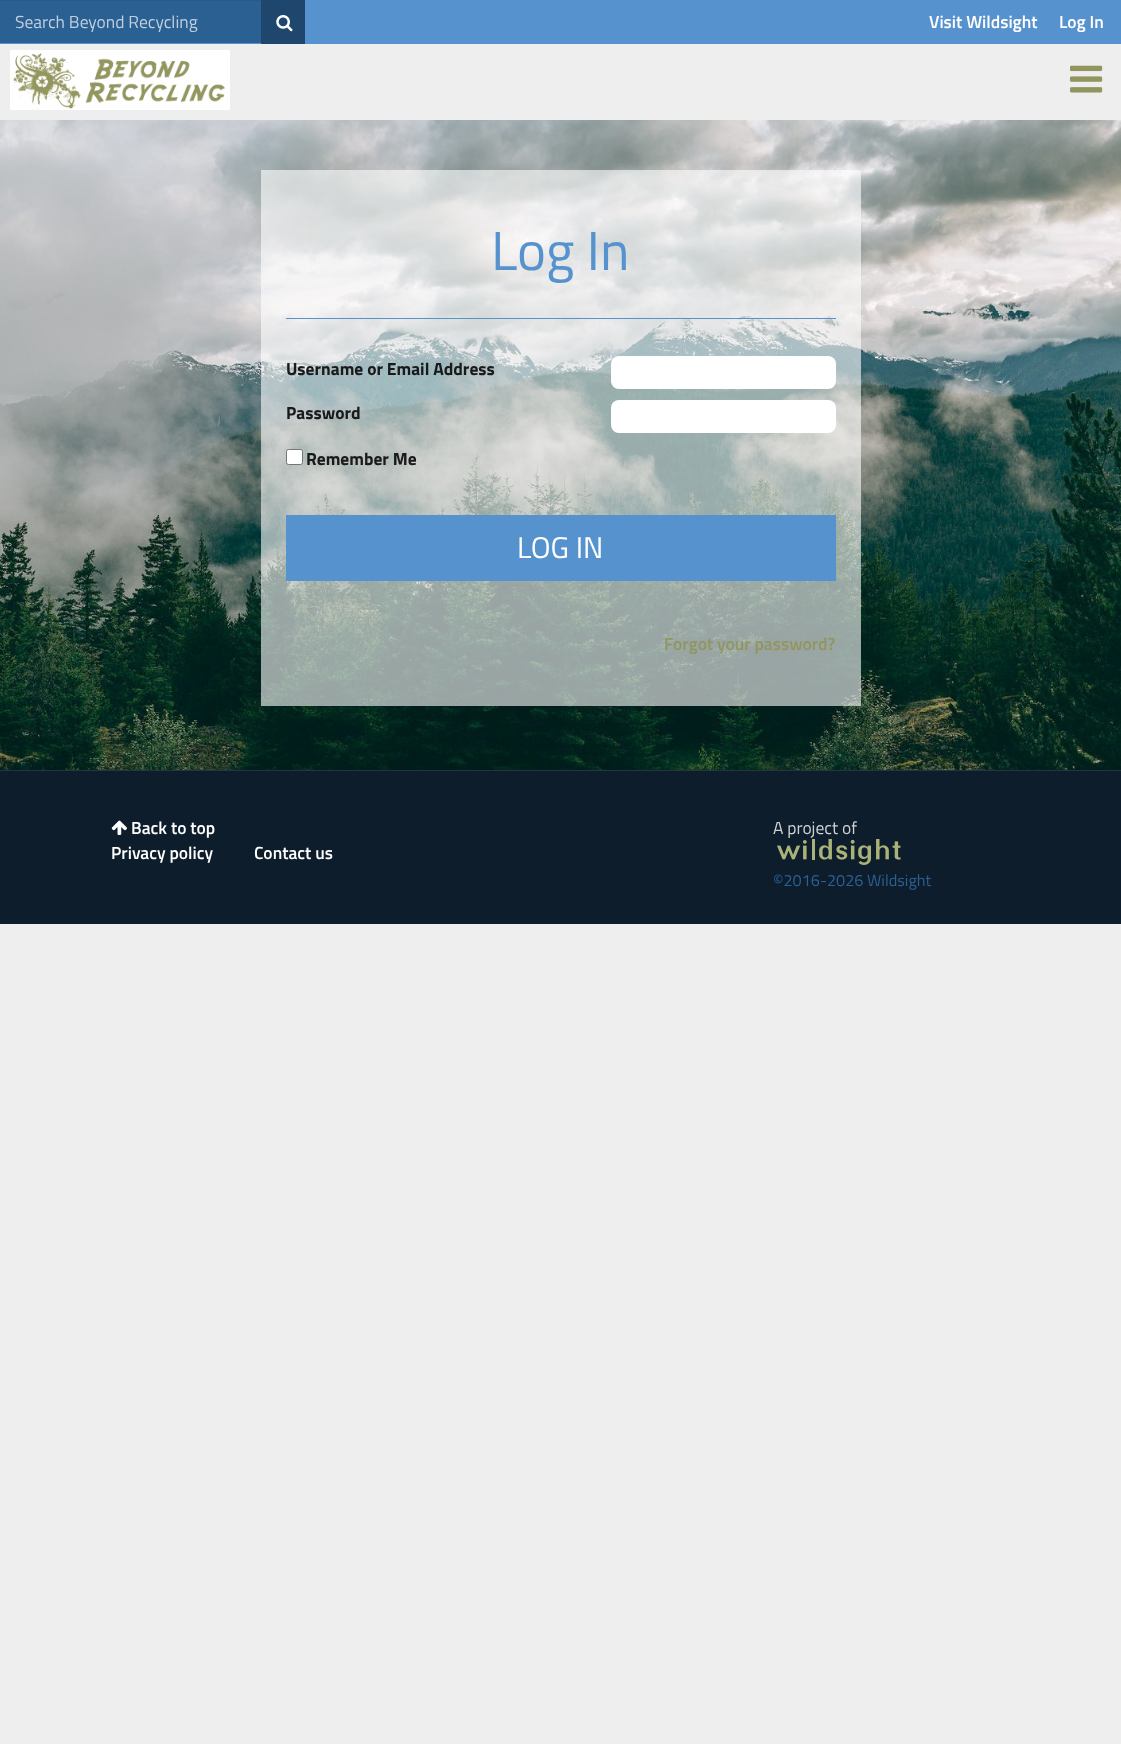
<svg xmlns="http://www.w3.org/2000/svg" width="1121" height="1744">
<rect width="100%" height="100%" fill="#eee"/>
<rect width="1121" height="44" fill="#5693ce"/>
<rect y="1" width="261" height="42" fill="#2b6093"/>
<rect width="263" height="1" fill="#285988"/>
<text x="15" y="28" style="font-family:Titillium Web;font-size:17.5px;fill:#bfcfdf">Search Beyond Recycling</text>
<rect x="261" width="44" height="44" fill="#1f466c"/>
<image x="276" y="15" width="17" height="17" href="media/1.png"/>
<text x="929" y="28" style="font-family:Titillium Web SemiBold;font-size:17.5px;font-weight:600;fill:#fff">Visit Wildsight</text>
<text x="1059" y="28" style="font-family:Titillium Web SemiBold;font-size:17.5px;font-weight:600;fill:#fff">Log In</text>
<image x="10" y="50" width="220" height="60" href="media/2.png"/>
<image x="1070" y="65" width="33" height="28" href="media/3.png"/>
<image x="0" y="120" width="1121" height="650" href="media/4.png"/>
<rect x="261" y="170" width="600" height="536" fill="#ffffff99"/>
<rect x="286" y="318" width="550" height="1" fill="#5693ce"/>
<text x="491" y="270" style="font-family:Titillium Web;font-size:55px;fill:#5693ce">Log In</text>
<text x="286" y="375" style="font-family:Titillium Web;font-size:17.5px;font-weight:bold;fill:#1a1a1a">Username or Email Address</text>
<rect x="611" y="356" width="225" height="33" rx="8" fill="#fff"/>
<text x="286" y="419" style="font-family:Titillium Web;font-size:17.5px;font-weight:bold;fill:#1a1a1a">Password</text>
<rect x="611" y="400" width="225" height="33" rx="8" fill="#fff"/>
<rect x="286.5" y="449.5" width="16" height="15" rx="2" fill="#fff" stroke="#767676"/>
<text x="306" y="465" style="font-family:Titillium Web;font-size:17.5px;font-weight:bold;fill:#1a1a1a">Remember Me</text>
<rect x="286" y="515" width="550" height="66" fill="#5693ce"/>
<text x="517" y="558" style="font-family:Titillium Web;font-size:30px;fill:#fff">LOG IN</text>
<text x="664" y="650" style="font-family:Titillium Web SemiBold;font-size:17.5px;font-weight:600;fill:#92955e">Forgot your password?</text>
<rect y="771" width="1121" height="153" fill="#0d1d2c"/>
<rect y="770" width="1121" height="1" fill="#253441"/>
<image x="111" y="820" width="16" height="15" href="media/5.png"/>
<text x="131" y="834" style="font-family:Titillium Web SemiBold;font-size:17.5px;font-weight:600;fill:#fff">Back to top</text>
<text x="111" y="859" style="font-family:Titillium Web SemiBold;font-size:17.5px;font-weight:600;fill:#fff">Privacy policy</text>
<text x="254" y="859" style="font-family:Titillium Web SemiBold;font-size:17.5px;font-weight:600;fill:#fff">Contact us</text>
<text x="773" y="834" style="font-family:Titillium Web;font-size:17.5px;fill:#cfd2d5">A project of</text>
<image x="777" y="839" width="124" height="26" href="media/6.png"/>
<text x="773" y="886" style="font-family:Titillium Web;font-size:16.25px;fill:#2b6093">©2016-2026 Wildsight</text>
</svg>
